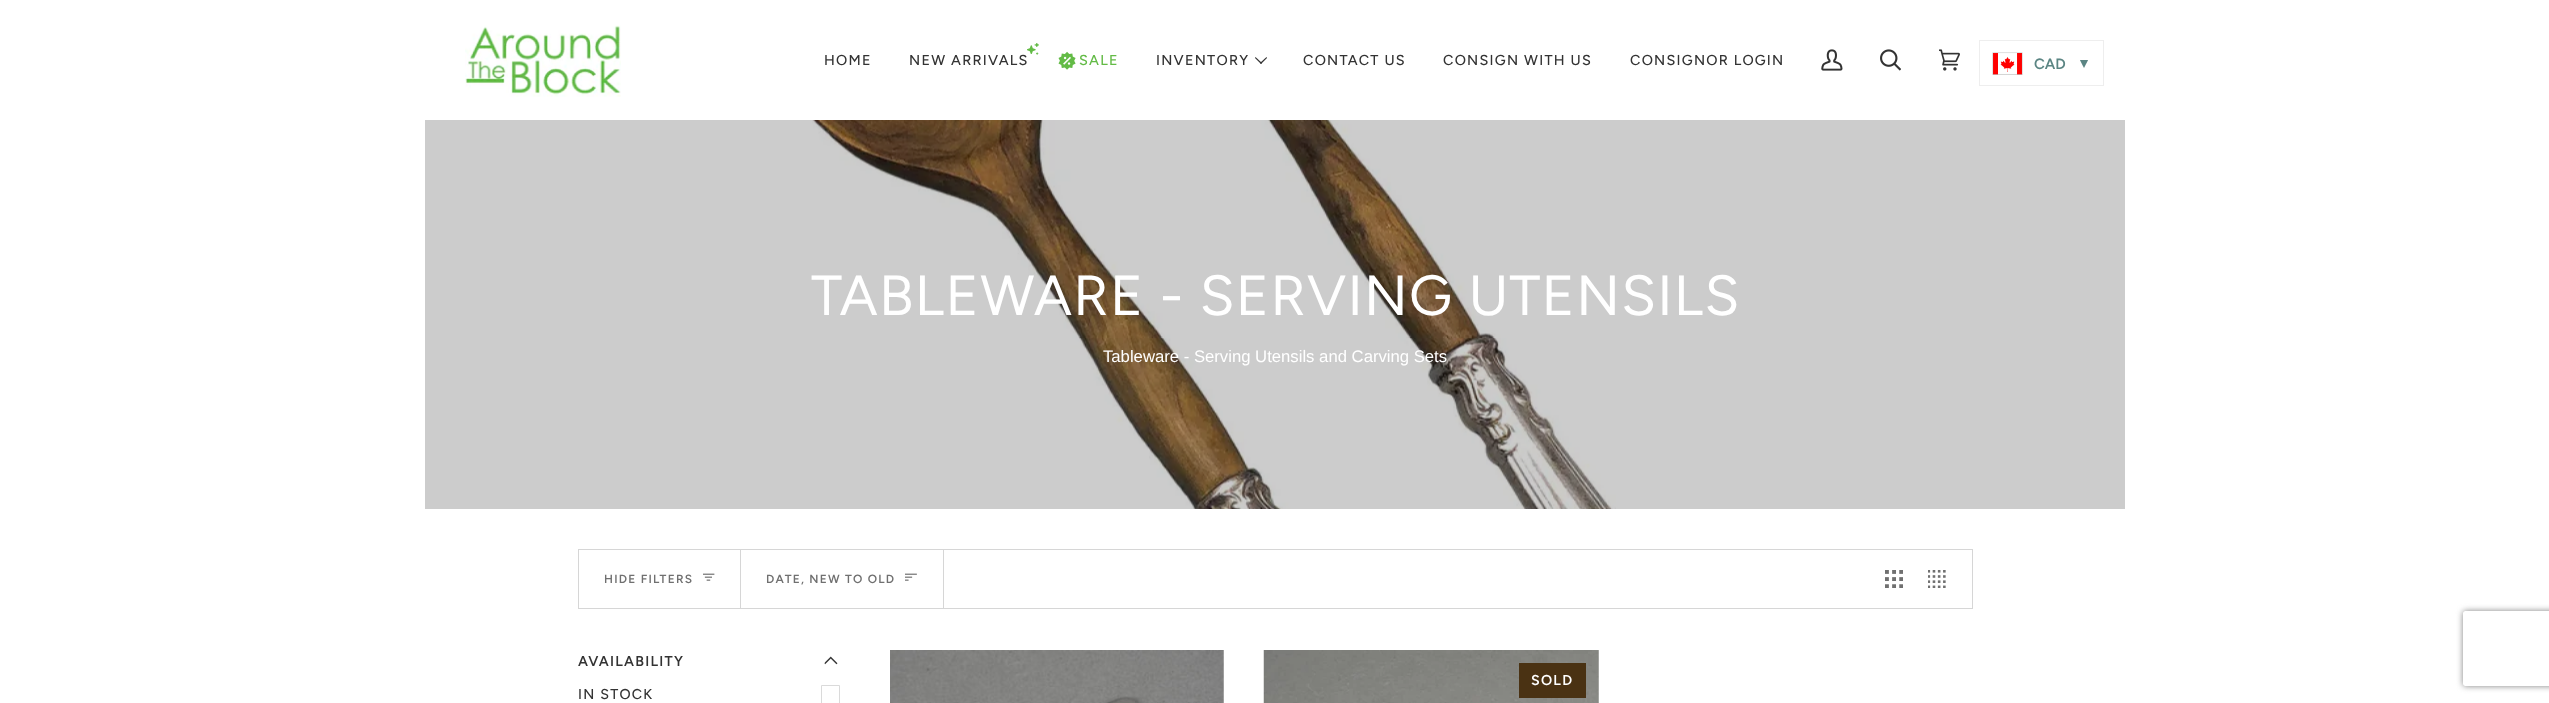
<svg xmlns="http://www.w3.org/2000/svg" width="2549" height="703">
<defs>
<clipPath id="clip1"><path d="M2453 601h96v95h-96zm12.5 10h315c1.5 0 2.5 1 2.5 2.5v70c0 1.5-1 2.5-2.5 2.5h-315c-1.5 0-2.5-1-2.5-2.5v-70c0-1.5 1-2.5 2.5-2.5z" clip-rule="evenodd"/></clipPath>
</defs>
<rect width="100%" height="100%" fill="#fff"/>
<rect x="425" y="120" width="1700" height="389" fill="#ccc"/>
<image x="465" y="25" width="156" height="72" href="media/1.png"/>
<text x="824" y="65" style="font-family:Figtree;font-size:14.4px;font-weight:500;letter-spacing:1.25px;fill:#333">HOME</text>
<text x="909" y="65" style="font-family:Figtree;font-size:14.4px;font-weight:500;letter-spacing:1.25px;fill:#333">NEW ARRIVALS</text>
<image x="1058" y="51" width="18" height="19" href="media/2.png"/>
<image x="1027" y="43" width="12" height="12" href="media/3.png"/>
<text x="1079" y="65" style="font-family:Figtree;font-size:14.4px;font-weight:500;letter-spacing:1.25px;fill:#63bb46">SALE</text>
<text x="1156" y="65" style="font-family:Figtree;font-size:14.4px;font-weight:500;letter-spacing:1.25px;fill:#333">INVENTORY</text>
<path d="M1266.5 57l.5 1l-6 6l-1-1z" fill="#333"/>
<path d="M1255.5 57l6.5 6l-1 1l-6-6z" fill="#333"/>
<text x="1303" y="65" style="font-family:Figtree;font-size:14.4px;font-weight:500;letter-spacing:1.25px;fill:#333">CONTACT US</text>
<text x="1443" y="65" style="font-family:Figtree;font-size:14.4px;font-weight:500;letter-spacing:1.25px;fill:#333">CONSIGN WITH US</text>
<text x="1630" y="65" style="font-family:Figtree;font-size:14.4px;font-weight:500;letter-spacing:1.25px;fill:#333">CONSIGNOR LOGIN</text>
<image x="1821" y="49" width="22" height="22" href="media/4.png"/>
<image x="1880" y="49" width="21" height="22" href="media/5.png"/>
<image x="1939" y="49" width="21" height="22" href="media/6.png"/>
<image x="1992" y="52" width="31" height="23" href="media/7.png"/>
<rect x="1979.5" y="40.5" width="124" height="45" fill="none" stroke="#eee"/>
<text x="2034" y="69" style="font-family:Figtree;font-size:15px;font-weight:600;fill:#5b8583">CAD</text>
<text x="2080" y="68" style="font-family:DejaVu Sans;font-size:15px;font-weight:bold;fill:#5b8583">▾</text>
<image x="812" y="120" width="804" height="389" href="media/8.png"/>
<text x="811" y="315" style="font-family:Figtree;font-size:56.5px;letter-spacing:1.25px;fill:#fff">TABLEWARE - SERVING UTENSILS</text>
<text x="1103" y="362" style="font-family:Liberation Sans;font-size:16.7px;fill:#fff">Tableware - Serving Utensils and Carving Sets</text>
<rect x="578.5" y="549.5" width="1394" height="59" fill="none" stroke="#d6d6d6"/>
<rect x="740" y="550" width="1" height="58" fill="#d6d6d6"/>
<text x="604" y="583" style="font-family:Figtree;font-size:11.9px;font-weight:600;letter-spacing:1.25px;fill:#707070">HIDE FILTERS</text>
<image x="703" y="573" width="12" height="8" href="media/9.png"/>
<rect x="943" y="550" width="1" height="58" fill="#d6d6d6"/>
<text x="766" y="583" style="font-family:Figtree;font-size:11.9px;font-weight:600;letter-spacing:1.25px;fill:#707070">DATE, NEW TO OLD</text>
<image x="905" y="573" width="12" height="8" href="media/10.png"/>
<image x="1885" y="570" width="18" height="18" href="media/11.png"/>
<image x="1928" y="570" width="18" height="18" href="media/12.png"/>
<text x="578" y="666" style="font-family:Figtree;font-size:14.25px;font-weight:600;letter-spacing:1.25px;fill:#333">AVAILABILITY</text>
<image x="824" y="656" width="14" height="9" href="media/13.png"/>
<text x="578" y="699" style="font-family:Figtree;font-size:14.25px;font-weight:500;letter-spacing:1.25px;fill:#333">IN STOCK</text>
<path d="M821.5 685.5h18v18h-18z" fill="none" stroke="#d6d6d6" stroke-width="0.9"/>
<image x="890" y="650" width="334" height="53" href="media/14.png"/>
<image x="1263" y="650" width="336" height="53" href="media/15.png"/>
<rect x="1519" y="663" width="67" height="35" fill="#4a3213"/>
<text x="1531" y="685" style="font-family:Figtree;font-size:14.25px;font-weight:600;letter-spacing:1.25px;fill:#fff">SOLD</text>
<g clip-path="url(#clip1)">
<rect x="2463" y="611" width="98" height="75" rx="2.5" fill="#808080" filter="blur(3px)"/>
</g>
</svg>
